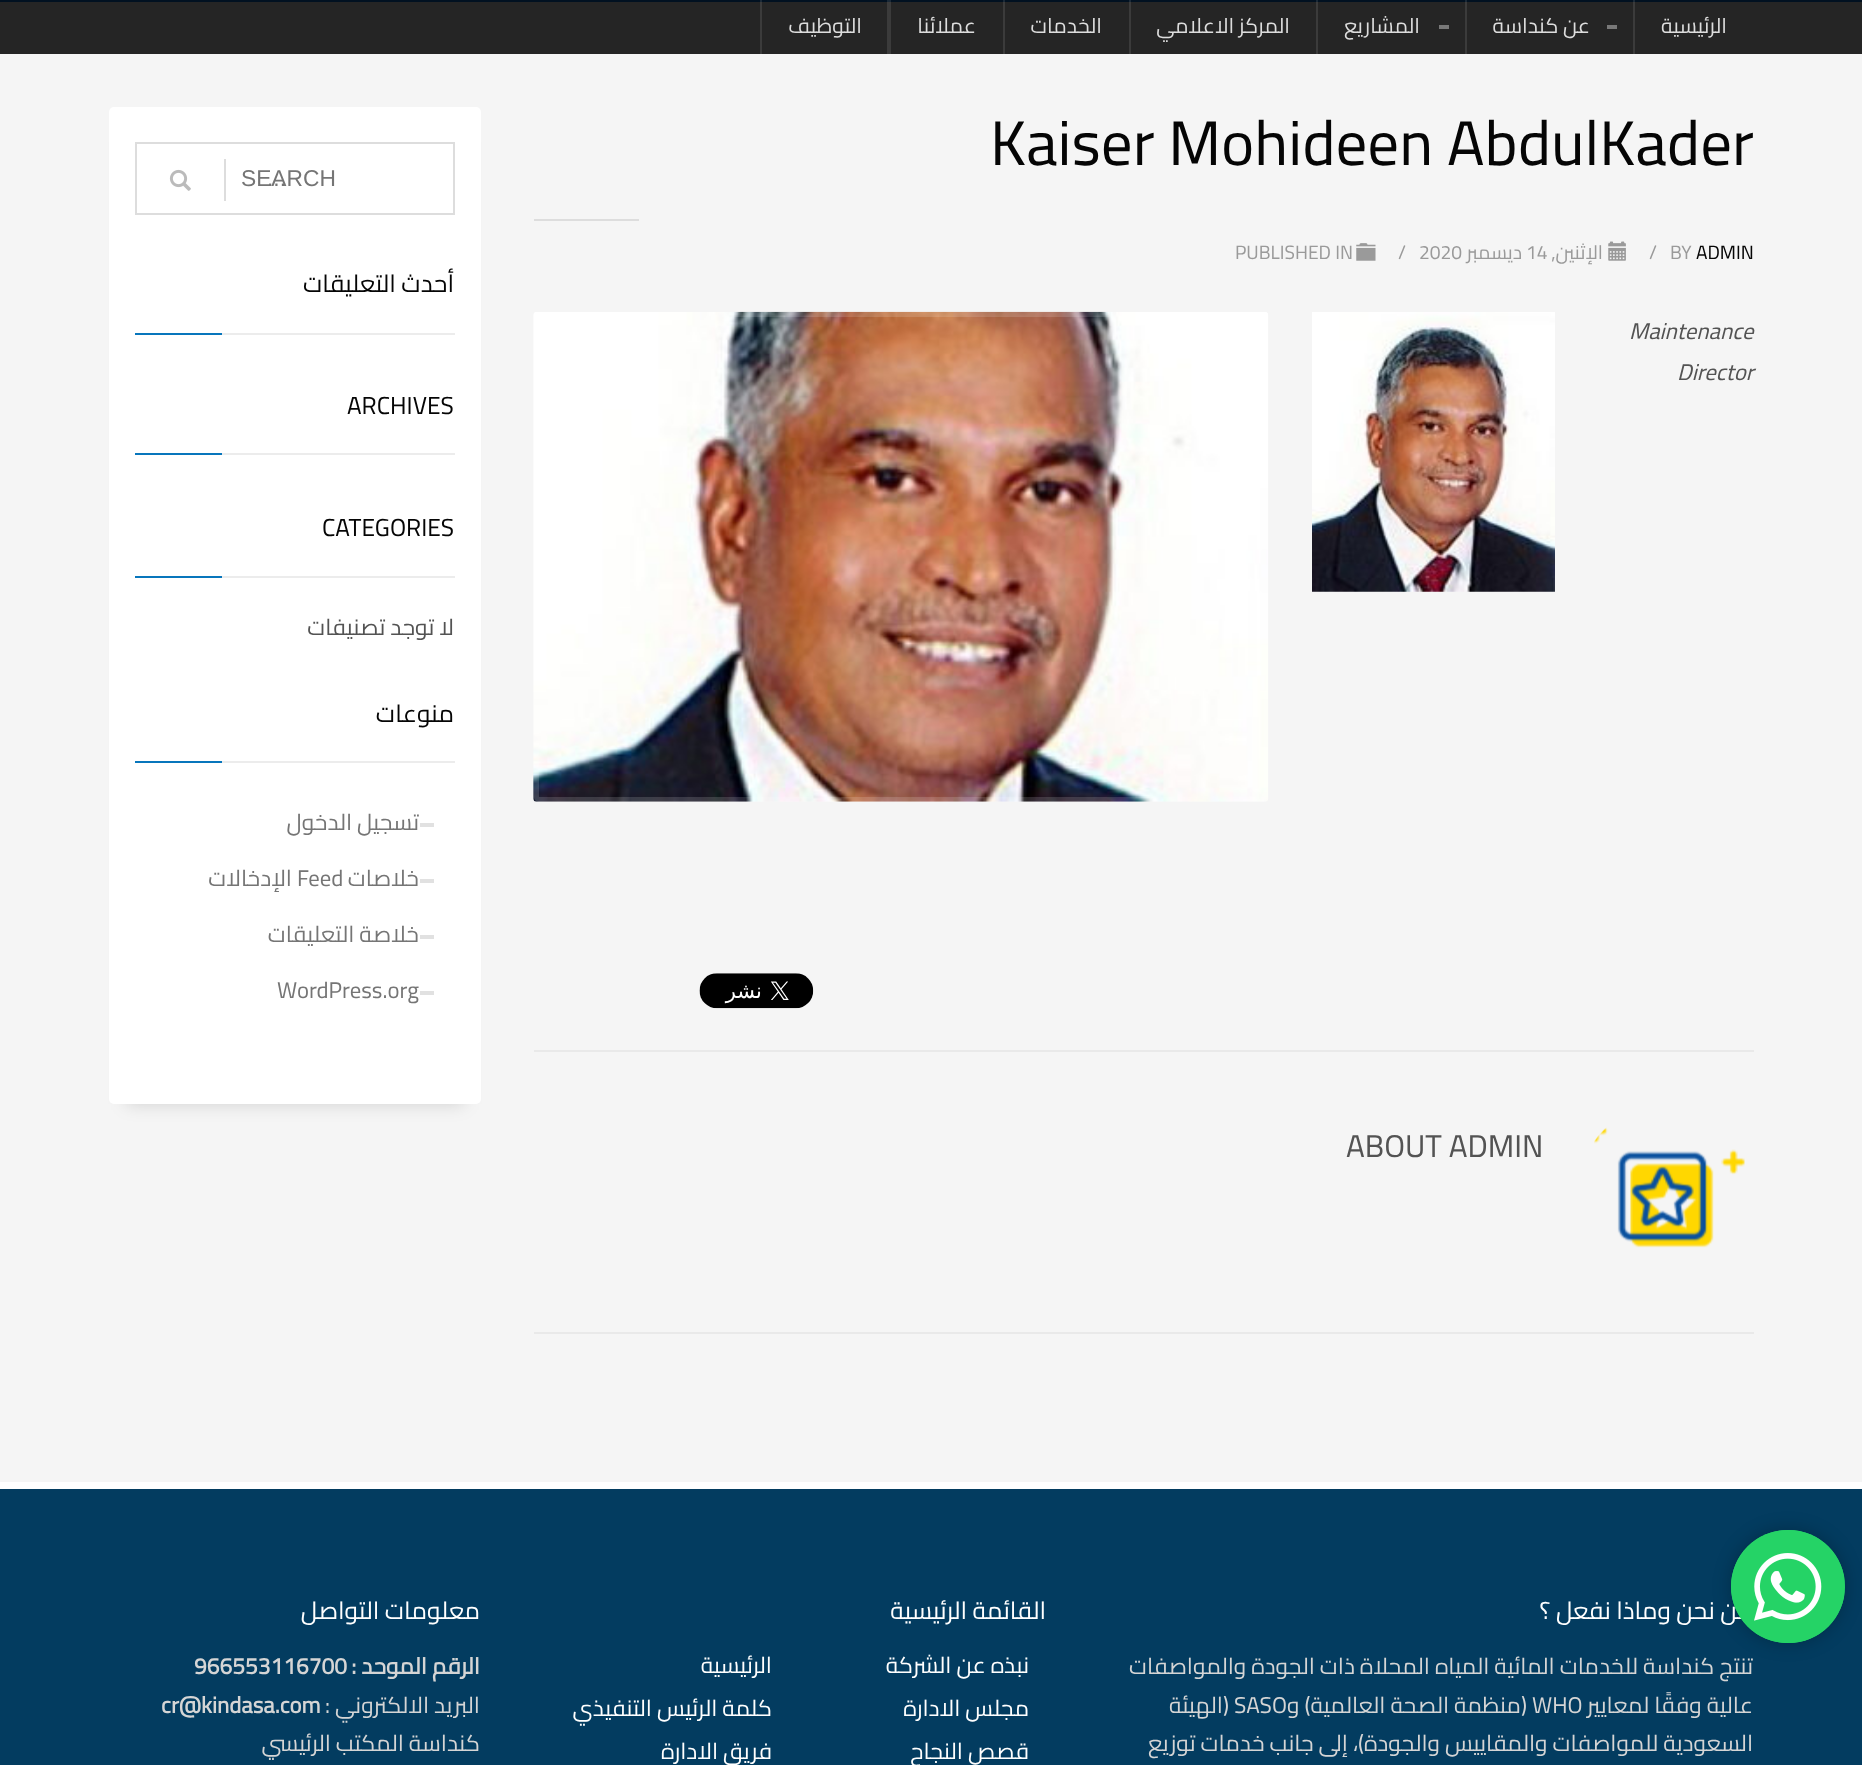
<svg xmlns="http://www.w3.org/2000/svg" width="1862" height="1765">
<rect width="100%" height="100%" fill="#f5f5f5"/>
<rect y="2" width="1862" height="52" fill="#252525"/>
<rect x="760" width="2" height="54" fill="#3b3b3b"/>
<rect x="887" width="4" height="54" fill="#3b3b3b"/>
<rect x="1003" width="2" height="54" fill="#3b3b3b"/>
<rect x="1129" width="2" height="54" fill="#3b3b3b"/>
<rect x="1316" width="2" height="54" fill="#3b3b3b"/>
<rect x="1465" width="2" height="54" fill="#3b3b3b"/>
<rect x="1633" width="2" height="54" fill="#3b3b3b"/>
<text x="1727" y="33" style="font-family:Cairo;font-size:21px;direction:rtl;fill:#ddd">الرئيسية</text>
<rect x="1607" y="25" width="10" height="4" fill="#787878"/>
<text x="1590" y="33" style="font-family:Cairo;font-size:21px;direction:rtl;fill:#ddd">عن كنداسة</text>
<rect x="1439" y="25" width="10" height="4" fill="#787878"/>
<text x="1420" y="33" style="font-family:Cairo;font-size:21px;direction:rtl;fill:#ddd">المشاريع</text>
<text x="1290" y="33" style="font-family:Cairo;font-size:21px;direction:rtl;fill:#ddd">المركز الاعلامي</text>
<text x="1102" y="33" style="font-family:Cairo;font-size:21px;direction:rtl;fill:#ddd">الخدمات</text>
<text x="976" y="33" style="font-family:Cairo;font-size:21px;direction:rtl;fill:#ddd">عملائنا</text>
<text x="862" y="33" style="font-family:Cairo;font-size:21px;direction:rtl;fill:#ddd">التوظيف</text>
<rect y="1489" width="1862" height="276" fill="#033c60"/>
<rect x="1731" y="1530" width="114" height="113" rx="56.5" fill="#00000040" filter="blur(9px)"/>
<text x="1753" y="1619" style="font-family:Cairo;font-size:24.5px;direction:rtl;fill:#fff">من نحن وماذا نفعل ؟</text>
<rect x="1731" y="1530" width="114" height="113" rx="56.5" fill="#25d366"/>
<image x="1731" y="1530" width="114" height="113" href="media/1.png"/>
<rect width="1862" height="2" fill="#011121"/>
<rect x="760" width="2" height="2" fill="#1a2937"/>
<rect x="887" width="4" height="2" fill="#1a2937"/>
<rect x="1003" width="2" height="2" fill="#1a2937"/>
<rect x="1129" width="2" height="2" fill="#1a2937"/>
<rect x="1316" width="2" height="2" fill="#1a2937"/>
<rect x="1465" width="2" height="2" fill="#1a2937"/>
<rect x="1633" width="2" height="2" fill="#1a2937"/>
<text x="990" y="165" style="font-family:Cairo;font-size:63px;fill:#050505">Kaiser Mohideen AbdulKader</text>
<rect x="534" y="219" width="105" height="2" fill="#ddd"/>
<text x="1696" y="259" style="font-family:Cairo;font-size:19.25px;fill:#050505">ADMIN</text>
<text x="1670" y="259" style="font-family:Cairo;font-size:19.25px;fill:#9a9a9a">BY</text>
<text x="1649" y="259" style="font-family:Cairo;font-size:19.25px;fill:#9a9a9a">/</text>
<image x="1608" y="241" width="18" height="20" href="media/2.png"/>
<text x="1603" y="259" style="font-family:Cairo;font-size:19.25px;direction:rtl;fill:#9a9a9a">الإثنين,</text>
<text x="1526" y="259" style="font-family:Cairo;font-size:19.25px;fill:#9a9a9a">14</text>
<text x="1522" y="259" style="font-family:Cairo;font-size:19.25px;direction:rtl;fill:#9a9a9a">ديسمبر</text>
<text x="1419" y="259" style="font-family:Cairo;font-size:19.25px;fill:#9a9a9a">2020</text>
<text x="1398" y="259" style="font-family:Cairo;font-size:19.25px;fill:#9a9a9a">/</text>
<image x="1356" y="243" width="20" height="18" href="media/3.png"/>
<text x="1235" y="259" style="font-family:Cairo;font-size:19.25px;fill:#9a9a9a">PUBLISHED IN</text>
<text x="1629" y="339" style="font-family:Cairo;font-size:22.75px;font-style:italic;fill:#535353">Maintenance</text>
<text x="1677" y="380" style="font-family:Cairo;font-size:22.75px;font-style:italic;fill:#535353">Director</text>
<image x="1312" y="312" width="243" height="280" href="media/4.png"/>
<image x="533" y="311" width="735" height="491" href="media/5.png"/>
<rect x="536.5" y="314.5" width="730" height="485" rx="2.5" fill="none" stroke="#ffffff26" stroke-width="5"/>
<image x="699" y="973" width="115" height="36" href="media/6.png"/>
<rect x="534" y="1050" width="1220" height="2" fill="#e9e9e9"/>
<rect x="534" y="1332" width="1220" height="2" fill="#e9e9e9"/>
<image x="1594" y="1127" width="151" height="121" href="media/7.png"/>
<text x="1346" y="1157" style="font-family:Cairo;font-size:31.5px;fill:#535353">ABOUT ADMIN</text>
<rect x="126" y="142" width="338" height="962" fill="#00000026" filter="blur(9px)"/>
<rect x="109" y="107" width="372" height="997" rx="5" fill="#fff"/>
<rect x="136" y="143" width="318" height="71" fill="none" stroke="#ddd" stroke-width="2"/>
<text x="241" y="186" style="font-family:Liberation Sans;font-size:22.75px;fill:#757575">SEARCH</text>
<text x="267" y="186" style="font-family:Liberation Sans;font-size:22.75px;fill:#757575">...</text>
<rect x="224" y="159" width="2" height="42" fill="#ddd"/>
<image x="169" y="169" width="22" height="22" href="media/8.png"/>
<text x="454" y="292" style="font-family:Cairo;font-size:24.5px;direction:rtl;fill:#050505">أحدث التعليقات</text>
<rect x="222" y="333" width="233" height="2" fill="#ececec"/>
<rect x="135" y="333" width="87" height="2" fill="#0876bc"/>
<text x="347" y="414" style="font-family:Cairo;font-size:24.5px;fill:#050505">ARCHIVES</text>
<rect x="222" y="453" width="233" height="2" fill="#ececec"/>
<rect x="135" y="453" width="87" height="2" fill="#0876bc"/>
<text x="322" y="536" style="font-family:Cairo;font-size:24.5px;fill:#050505">CATEGORIES</text>
<rect x="222" y="576" width="233" height="2" fill="#ececec"/>
<rect x="135" y="576" width="87" height="2" fill="#0876bc"/>
<text x="454" y="635" style="font-family:Cairo;font-size:22.75px;direction:rtl;fill:#535353">لا توجد تصنيفات</text>
<text x="454" y="722" style="font-family:Cairo;font-size:24.5px;direction:rtl;fill:#050505">منوعات</text>
<rect x="222" y="761" width="233" height="2" fill="#ececec"/>
<rect x="135" y="761" width="87" height="2" fill="#0876bc"/>
<rect x="420" y="823" width="14" height="4" fill="#e1e1e1"/>
<text x="419" y="830" style="font-family:Cairo;font-size:22.75px;direction:rtl;fill:#757575">تسجيل الدخول</text>
<rect x="420" y="879" width="14" height="4" fill="#e1e1e1"/>
<text x="419" y="886" style="font-family:Cairo;font-size:22.75px;direction:rtl;fill:#757575">خلاصات</text>
<text x="297" y="886" style="font-family:Cairo;font-size:22.75px;fill:#757575">Feed</text>
<text x="292" y="886" style="font-family:Cairo;font-size:22.75px;direction:rtl;fill:#757575">الإدخالات</text>
<rect x="420" y="935" width="14" height="4" fill="#e1e1e1"/>
<text x="419" y="942" style="font-family:Cairo;font-size:22.75px;direction:rtl;fill:#757575">خلاصة التعليقات</text>
<rect x="420" y="991" width="14" height="4" fill="#e1e1e1"/>
<text x="277" y="998" style="font-family:Cairo;font-size:22.75px;fill:#757575">WordPress.org</text>
<rect y="1482" width="1862" height="7" fill="#fff"/>
<text x="1753" y="1674" style="font-family:Cairo;font-size:22.75px;direction:rtl;fill:#d5d5d5">تنتج كنداسة للخدمات المائية المياه المحلاة ذات الجودة والمواصفات</text>
<text x="1753" y="1713" style="font-family:Cairo;font-size:22.75px;direction:rtl;fill:#d5d5d5">عالية وفقًا لمعايير</text>
<text x="1532" y="1713" style="font-family:Cairo;font-size:22.75px;fill:#d5d5d5">WHO</text>
<text x="1527" y="1713" style="font-family:Cairo;font-size:22.75px;direction:rtl;fill:#d5d5d5">(منظمة الصحة العالمية) و</text>
<text x="1234" y="1713" style="font-family:Cairo;font-size:22.75px;fill:#d5d5d5">SASO</text>
<text x="1229" y="1713" style="font-family:Cairo;font-size:22.75px;direction:rtl;fill:#d5d5d5">(الهيئة</text>
<text x="1753" y="1751" style="font-family:Cairo;font-size:22.75px;direction:rtl;fill:#d5d5d5">السعودية للمواصفات والمقاييس والجودة)، إلى جانب خدمات توزيع</text>
<text x="1046" y="1619" style="font-family:Cairo;font-size:24.5px;direction:rtl;fill:#fff">القائمة الرئيسية</text>
<text x="1029" y="1673" style="font-family:Cairo;font-size:22.75px;direction:rtl;fill:#fff">نبذه عن الشركة</text>
<text x="772" y="1673" style="font-family:Cairo;font-size:22.75px;direction:rtl;fill:#fff">الرئيسية</text>
<text x="1029" y="1716" style="font-family:Cairo;font-size:22.75px;direction:rtl;fill:#fff">مجلس الادارة</text>
<text x="772" y="1716" style="font-family:Cairo;font-size:22.75px;direction:rtl;fill:#fff">كلمة الرئيس التنفيذي</text>
<text x="1029" y="1759" style="font-family:Cairo;font-size:22.75px;direction:rtl;fill:#fff">قصص النجاح</text>
<text x="772" y="1759" style="font-family:Cairo;font-size:22.75px;direction:rtl;fill:#fff">فريق الادارة</text>
<text x="480" y="1619" style="font-family:Cairo;font-size:24.5px;direction:rtl;fill:#fff">معلومات التواصل</text>
<text x="480" y="1674" style="font-family:Cairo;font-size:22.75px;font-weight:bold;direction:rtl;fill:#d5d5d5">الرقم الموحد :</text>
<text x="194" y="1674" style="font-family:Cairo;font-size:22.75px;font-weight:bold;fill:#d5d5d5">966553116700</text>
<text x="480" y="1713" style="font-family:Cairo;font-size:22.75px;direction:rtl;fill:#d5d5d5">البريد الالكتروني :</text>
<text x="161" y="1713" style="font-family:Cairo;font-size:22.75px;font-weight:bold;fill:#d5d5d5">cr@kindasa.com</text>
<text x="480" y="1751" style="font-family:Cairo;font-size:22.75px;direction:rtl;fill:#d5d5d5">كنداسة المكتب الرئيسي</text>
</svg>
